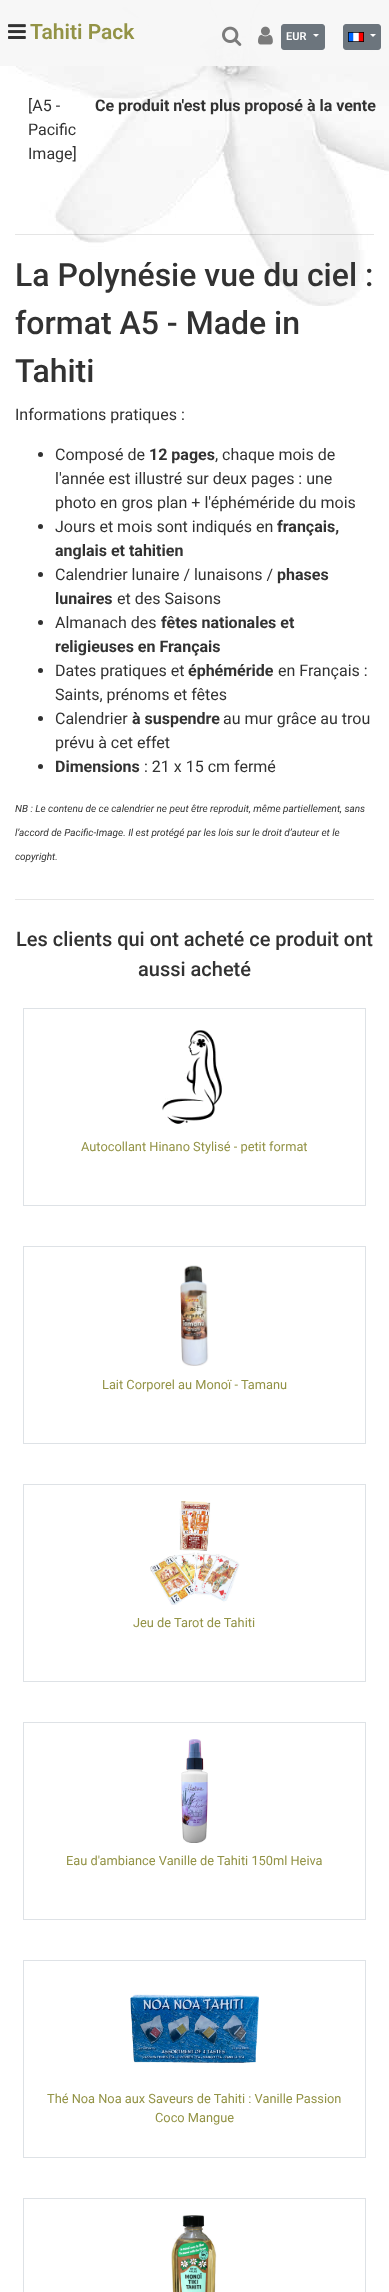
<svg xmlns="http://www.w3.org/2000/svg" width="389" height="2292">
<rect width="100%" height="100%" fill="#fff"/>
<image x="0" y="0" width="389" height="306" href="media/5.png"/>
<image x="94" y="27" width="16" height="16" href="media/6.png"/>
<rect width="389" height="66" fill="#f7f7f7f5"/>
<image x="8" y="24" width="18" height="15" href="media/1.png"/>
<text x="30" y="39" style="font-family:Roboto;font-size:21px;font-weight:600;fill:#939346">Tahiti Pack</text>
<image x="222" y="26" width="20" height="20" href="media/2.png"/>
<image x="258" y="26" width="15" height="19" href="media/3.png"/>
<rect x="281.5" y="24.5" width="43" height="25" rx="2.5" fill="#6c757d" stroke="#6c757d"/>
<text x="286" y="40" style="font-family:Roboto;font-size:11px;font-weight:600;fill:#fff">EUR</text>
<path d="M313 34h6l-3 3z" fill="#fff"/>
<rect x="343.5" y="24.5" width="37" height="25" rx="2.5" fill="#6c757d" stroke="#6c757d"/>
<image x="348" y="32" width="16" height="10" href="media/4.png"/>
<path d="M370 34h6l-3 3z" fill="#fff"/>
<text x="28" y="111" style="font-family:Roboto;font-size:16px;fill:#323232">[A5 -</text>
<text x="28" y="135" style="font-family:Roboto;font-size:16px;fill:#323232">Pacific</text>
<text x="28" y="159" style="font-family:Roboto;font-size:16px;fill:#323232">Image]</text>
<text x="95" y="111" style="font-family:Roboto;font-size:16px;font-weight:bold;fill:#323232">Ce produit n'est plus proposé à la vente</text>
<rect x="15" y="234" width="359" height="1" fill="#0000001a"/>
<text x="15" y="286" style="font-family:Roboto;font-size:32px;font-weight:500;fill:#323232">La Polynésie vue du ciel :</text>
<text x="15" y="334" style="font-family:Roboto;font-size:32px;font-weight:500;fill:#323232">format A5 - Made in</text>
<text x="15" y="382" style="font-family:Roboto;font-size:32px;font-weight:500;fill:#323232">Tahiti</text>
<text x="15" y="420" style="font-family:Roboto;font-size:16px;fill:#323232">Informations pratiques :</text>
<circle cx="40.5" cy="454.5" r="2.5" fill="#323232"/>
<text x="55" y="460" style="font-family:Roboto;font-size:16px;fill:#323232">Composé de</text>
<text x="149" y="460" style="font-family:Roboto;font-size:16px;font-weight:bold;fill:#323232">12 pages</text>
<text x="215" y="460" style="font-family:Roboto;font-size:16px;fill:#323232">, chaque mois de</text>
<text x="55" y="484" style="font-family:Roboto;font-size:16px;fill:#323232">l'année est illustré sur deux pages : une</text>
<text x="55" y="508" style="font-family:Roboto;font-size:16px;fill:#323232">photo en gros plan + l'éphéméride du mois</text>
<circle cx="40.5" cy="526.5" r="2.5" fill="#323232"/>
<text x="55" y="532" style="font-family:Roboto;font-size:16px;fill:#323232">Jours et mois sont indiqués en</text>
<text x="277" y="532" style="font-family:Roboto;font-size:16px;font-weight:bold;fill:#323232">français,</text>
<text x="55" y="556" style="font-family:Roboto;font-size:16px;font-weight:bold;fill:#323232">anglais et tahitien</text>
<circle cx="40.5" cy="574.5" r="2.5" fill="#323232"/>
<text x="55" y="580" style="font-family:Roboto;font-size:16px;fill:#323232">Calendrier lunaire / lunaisons /</text>
<text x="277" y="580" style="font-family:Roboto;font-size:16px;font-weight:bold;fill:#323232">phases</text>
<text x="55" y="604" style="font-family:Roboto;font-size:16px;font-weight:bold;fill:#323232">lunaires</text>
<text x="117" y="604" style="font-family:Roboto;font-size:16px;fill:#323232">et des Saisons</text>
<circle cx="40.5" cy="622.5" r="2.5" fill="#323232"/>
<text x="55" y="628" style="font-family:Roboto;font-size:16px;fill:#323232">Almanach des</text>
<text x="161" y="628" style="font-family:Roboto;font-size:16px;font-weight:bold;fill:#323232">fêtes nationales et</text>
<text x="55" y="652" style="font-family:Roboto;font-size:16px;font-weight:bold;fill:#323232">religieuses en Français</text>
<circle cx="40.5" cy="670.5" r="2.5" fill="#323232"/>
<text x="55" y="676" style="font-family:Roboto;font-size:16px;fill:#323232">Dates pratiques et</text>
<text x="188" y="676" style="font-family:Roboto;font-size:16px;font-weight:bold;fill:#323232">éphéméride</text>
<text x="278" y="676" style="font-family:Roboto;font-size:16px;fill:#323232">en Français :</text>
<text x="55" y="700" style="font-family:Roboto;font-size:16px;fill:#323232">Saints, prénoms et fêtes</text>
<circle cx="40.5" cy="718.5" r="2.5" fill="#323232"/>
<text x="55" y="724" style="font-family:Roboto;font-size:16px;fill:#323232">Calendrier</text>
<text x="132" y="724" style="font-family:Roboto;font-size:16px;font-weight:bold;fill:#323232">à suspendre</text>
<text x="223" y="724" style="font-family:Roboto;font-size:16px;fill:#323232">au mur grâce au trou</text>
<text x="55" y="748" style="font-family:Roboto;font-size:16px;fill:#323232">prévu à cet effet</text>
<circle cx="40.5" cy="766.5" r="2.5" fill="#323232"/>
<text x="55" y="772" style="font-family:Roboto;font-size:16px;font-weight:bold;fill:#323232">Dimensions</text>
<text x="144" y="772" style="font-family:Roboto;font-size:16px;fill:#323232">: 21 x 15 cm fermé</text>
<text x="15" y="812" style="font-family:Roboto;font-size:10px;font-style:italic;fill:#323232">NB : Le contenu de ce calendrier ne peut être reproduit, même partiellement, sans</text>
<text x="15" y="836" style="font-family:Roboto;font-size:10px;font-style:italic;fill:#323232">l’accord de Pacific-Image. Il est protégé par les lois sur le droit d’auteur et le</text>
<text x="15" y="860" style="font-family:Roboto;font-size:10px;font-style:italic;fill:#323232">copyright.</text>
<rect x="15" y="899" width="359" height="1" fill="#e6e6e6"/>
<text x="16" y="946" style="font-family:Roboto;font-size:20px;font-weight:500;fill:#323232">Les clients qui ont acheté ce produit ont</text>
<text x="138" y="976" style="font-family:Roboto;font-size:20px;font-weight:500;fill:#323232">aussi acheté</text>
<rect x="23.5" y="1008.5" width="342" height="197" fill="none" stroke="#dee2e6"/>
<image x="161" y="1030" width="62" height="94" href="media/7.png"/>
<text x="81" y="1151" style="font-family:Roboto;font-size:12.8px;fill:#939346">Autocollant Hinano Stylisé - petit format</text>
<rect x="23.5" y="1246.5" width="342" height="197" fill="none" stroke="#dee2e6"/>
<image x="180" y="1265" width="29" height="101" href="media/8.png"/>
<text x="102" y="1389" style="font-family:Roboto;font-size:12.8px;fill:#939346">Lait Corporel au Monoï - Tamanu</text>
<rect x="23.5" y="1484.5" width="342" height="197" fill="none" stroke="#dee2e6"/>
<image x="150" y="1501" width="90" height="104" href="media/9.png"/>
<text x="133" y="1627" style="font-family:Roboto;font-size:12.8px;fill:#939346">Jeu de Tarot de Tahiti</text>
<rect x="23.5" y="1722.5" width="342" height="197" fill="none" stroke="#dee2e6"/>
<image x="181" y="1739" width="27" height="104" href="media/10.png"/>
<text x="66" y="1865" style="font-family:Roboto;font-size:12.8px;fill:#939346">Eau d'ambiance Vanille de Tahiti 150ml Heiva</text>
<rect x="23.5" y="1960.5" width="342" height="197" fill="none" stroke="#dee2e6"/>
<image x="130" y="1994" width="129" height="69" href="media/11.png"/>
<text x="47" y="2103" style="font-family:Roboto;font-size:12.8px;fill:#939346">Thé Noa Noa aux Saveurs de Tahiti : Vanille Passion</text>
<text x="155" y="2122" style="font-family:Roboto;font-size:12.8px;fill:#939346">Coco Mangue</text>
<rect x="23.5" y="2198.5" width="342" height="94" fill="none" stroke="#dee2e6"/>
<image x="171" y="2215" width="46" height="77" href="media/12.png"/>
</svg>
